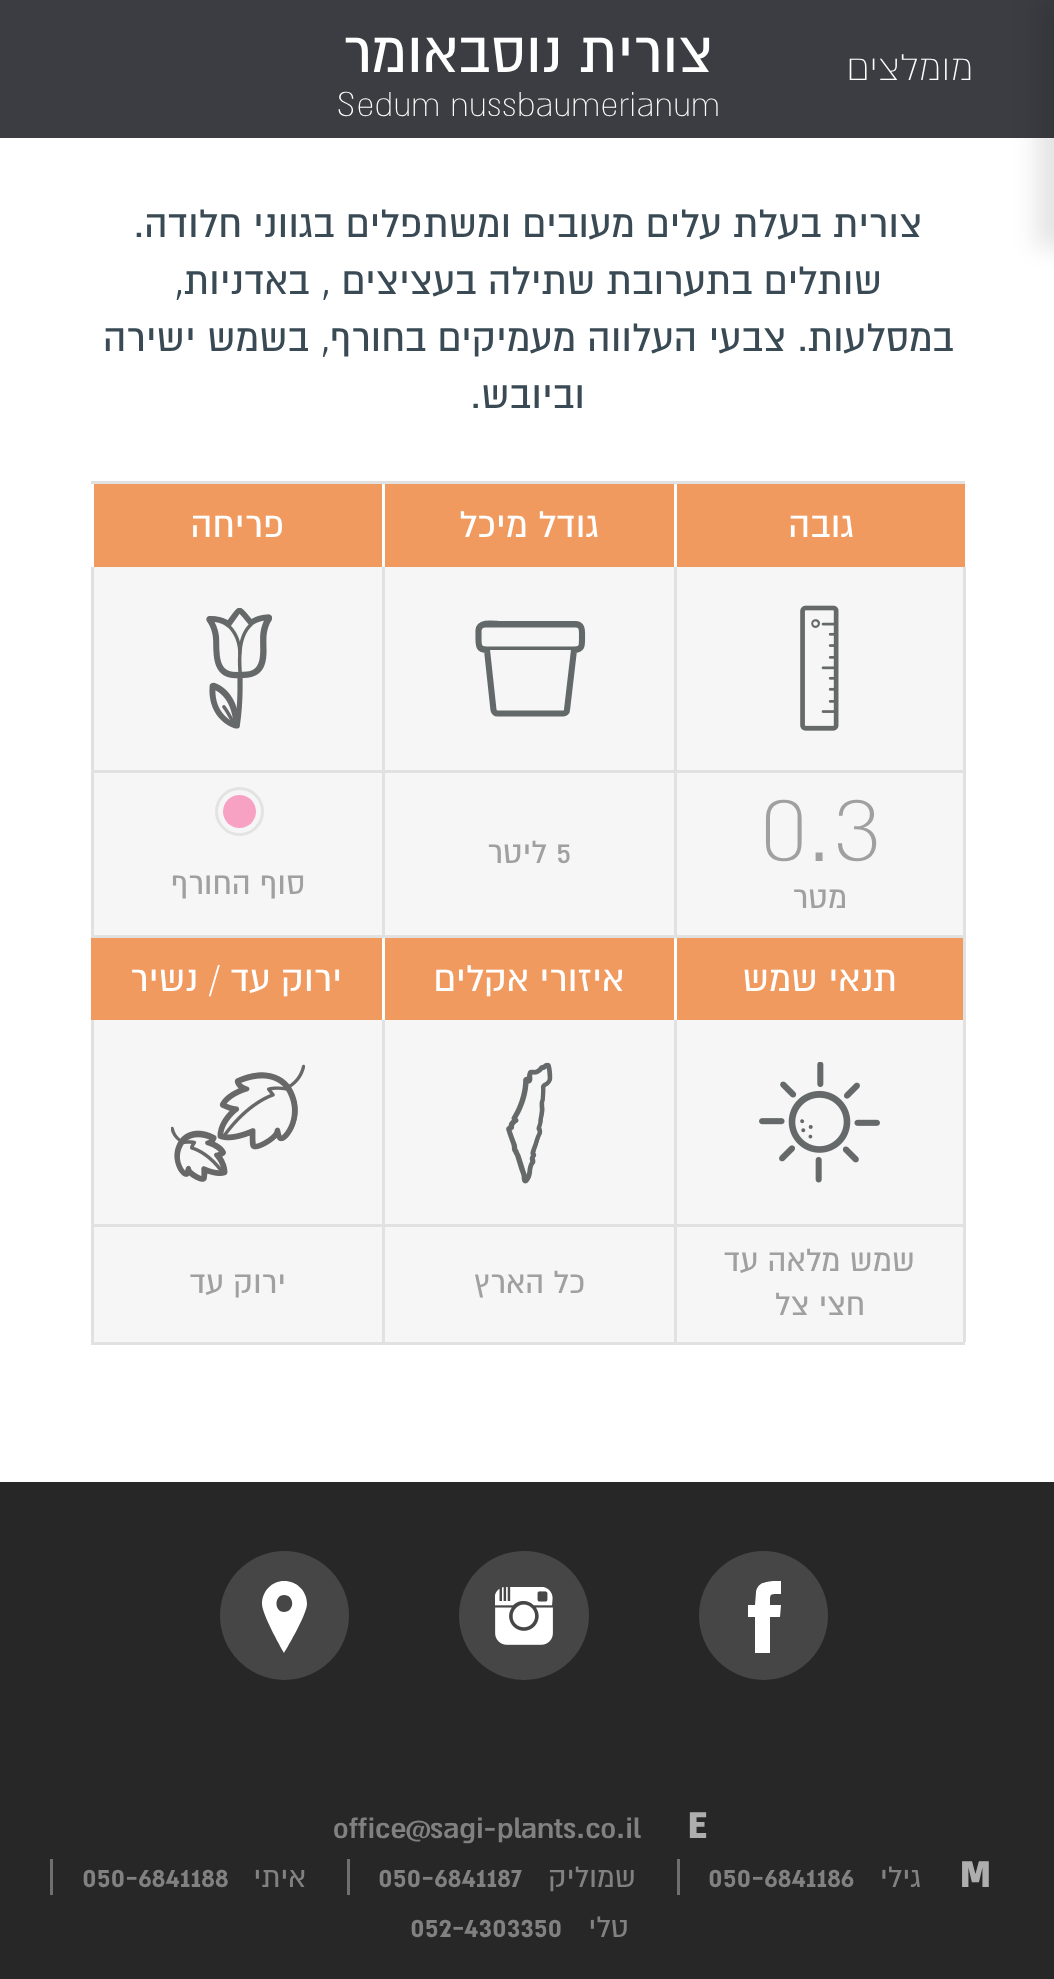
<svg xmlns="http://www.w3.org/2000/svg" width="1054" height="1979">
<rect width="100%" height="100%" fill="#fff"/>
<rect width="1054" height="138" fill="#3c3d42"/>
<rect x="1037" width="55" height="248" fill="#0000001c" filter="blur(12.5px)"/>
<text x="973" y="80" style="font-family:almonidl;font-size:41.25px;font-weight:300;direction:rtl;fill:#fff">מומלצים</text>
<text x="713" y="72" style="font-family:almonidl;font-size:66px;direction:rtl;fill:#fff">צורית נוסבאומר</text>
<text x="336" y="116" style="font-family:almonidl;font-size:38.5px;font-weight:300;fill:#fff">Sedum nussbaumerianum</text>
<text x="922" y="237" style="font-family:almonidl;font-size:44px;direction:rtl;fill:#394a55">צורית בעלת עלים מעובים ומשתפלים בגווני חלודה.</text>
<text x="882" y="294" style="font-family:almonidl;font-size:44px;direction:rtl;fill:#394a55">שותלים בתערובת שתילה בעציצים , באדניות,</text>
<text x="954" y="351" style="font-family:almonidl;font-size:44px;direction:rtl;fill:#394a55">במסלעות. צבעי העלווה מעמיקים בחורף, בשמש ישירה</text>
<text x="585" y="408" style="font-family:almonidl;font-size:44px;direction:rtl;fill:#394a55">וביובש.</text>
<rect x="91" y="1342" width="874" height="3" fill="#e1e1e1"/>
<rect x="677" y="567" width="286" height="203" fill="#f7f6f6"/>
<rect x="91" y="481" width="874" height="3" fill="#e1e1e1"/>
<rect x="677" y="484" width="288" height="83" fill="#f19a5f"/>
<text x="854" y="537" style="font-family:almonidl;font-size:41.25px;direction:rtl;fill:#fff">גובה</text>
<image x="800" y="605" width="39" height="126" href="media/1.png"/>
<rect x="963" y="567" width="3" height="203" fill="#e1e1e1"/>
<rect x="674" y="567" width="3" height="203" fill="#e1e1e1"/>
<rect x="385" y="567" width="289" height="203" fill="#f7f6f6"/>
<rect x="385" y="484" width="289" height="83" fill="#f19a5f"/>
<text x="599" y="537" style="font-family:almonidl;font-size:41.25px;direction:rtl;fill:#fff">גודל מיכל</text>
<rect x="478.75" y="625.75" width="103.5" height="22.5" rx="6.25" fill="none" stroke="#636869" stroke-width="3.5"/>
<path d="M574 650l-7 60c0 2-2 3.5-3.5 3.5h-66c-2 0-3.5-1.5-4-3.5l-6.5-60c-8 0-8.5-4-8.5-11v-8.5c.5-10 17-6.5 21.5-6.5h76c7 .5 6 8 6 13c0 7.5 1 13-8 13z" fill="none" stroke="#636869" stroke-width="6.1"/>
<rect x="382" y="567" width="3" height="203" fill="#e1e1e1"/>
<rect x="94" y="567" width="288" height="203" fill="#f7f6f6"/>
<rect x="94" y="484" width="288" height="83" fill="#f19a5f"/>
<text x="285" y="537" style="font-family:almonidl;font-size:41.25px;direction:rtl;fill:#fff">פריחה</text>
<image x="206" y="608" width="66" height="121" href="media/2.png"/>
<rect x="91" y="567" width="3" height="203" fill="#e1e1e1"/>
<rect x="677" y="773" width="286" height="162" fill="#f7f6f6"/>
<rect x="91" y="770" width="874" height="3" fill="#e1e1e1"/>
<rect x="963" y="770" width="3" height="165" fill="#e1e1e1"/>
<rect x="674" y="770" width="3" height="165" fill="#e1e1e1"/>
<text x="758" y="861" style="font-family:almonidl;font-size:118px;font-weight:300;fill:#a0a0a0">0.3</text>
<text x="847" y="908" style="font-family:almonidl;font-size:35.75px;direction:rtl;fill:#a0a0a0">מטר</text>
<rect x="385" y="773" width="289" height="162" fill="#f7f6f6"/>
<rect x="382" y="770" width="3" height="165" fill="#e1e1e1"/>
<text x="556" y="863" style="font-family:almonidl;font-size:35.75px;fill:#a0a0a0">5</text>
<text x="547" y="863" style="font-family:almonidl;font-size:35.75px;direction:rtl;fill:#a0a0a0">ליטר</text>
<rect x="94" y="773" width="288" height="162" fill="#f7f6f6"/>
<rect x="91" y="770" width="3" height="165" fill="#e1e1e1"/>
<circle cx="239.5" cy="811.5" r="23" fill="none" stroke="#e3e3e3" stroke-width="3"/>
<circle cx="239.5" cy="811.5" r="16.5" fill="#f8a2c3"/>
<text x="305" y="894" style="font-family:almonidl;font-size:35.75px;direction:rtl;fill:#a0a0a0">סוף החורף</text>
<rect x="677" y="1020" width="286" height="204" fill="#f7f6f6"/>
<rect x="91" y="935" width="874" height="3" fill="#e1e1e1"/>
<rect x="963" y="935" width="3" height="289" fill="#e1e1e1"/>
<rect x="677" y="938" width="286" height="82" fill="#f19a5f"/>
<text x="897" y="991" style="font-family:almonidl;font-size:41.25px;direction:rtl;fill:#fff">תנאי שמש</text>
<image x="759" y="1062" width="121" height="121" href="media/3.png"/>
<rect x="674" y="1020" width="3" height="204" fill="#e1e1e1"/>
<rect x="385" y="1020" width="289" height="204" fill="#f7f6f6"/>
<rect x="385" y="938" width="289" height="82" fill="#f19a5f"/>
<text x="624" y="991" style="font-family:almonidl;font-size:41.25px;direction:rtl;fill:#fff">איזורי אקלים</text>
<image x="506" y="1062" width="47" height="122" href="media/4.png"/>
<rect x="382" y="1020" width="3" height="204" fill="#e1e1e1"/>
<rect x="94" y="1020" width="288" height="204" fill="#f7f6f6"/>
<rect x="91" y="938" width="291" height="82" fill="#f19a5f"/>
<text x="342" y="991" style="font-family:almonidl;font-size:41.25px;direction:rtl;fill:#fff">ירוק עד / נשיר</text>
<image x="171" y="1064" width="134" height="118" href="media/5.png"/>
<rect x="91" y="1020" width="3" height="204" fill="#e1e1e1"/>
<rect x="677" y="1227" width="286" height="115" fill="#f7f6f6"/>
<rect x="91" y="1224" width="874" height="3" fill="#e1e1e1"/>
<rect x="963" y="1224" width="3" height="118" fill="#e1e1e1"/>
<rect x="674" y="1224" width="3" height="118" fill="#e1e1e1"/>
<text x="915" y="1271" style="font-family:almonidl;font-size:35.75px;direction:rtl;fill:#a0a0a0">שמש מלאה עד</text>
<text x="865" y="1315" style="font-family:almonidl;font-size:35.75px;direction:rtl;fill:#a0a0a0">חצי צל</text>
<rect x="385" y="1227" width="289" height="115" fill="#f7f6f6"/>
<rect x="382" y="1224" width="3" height="118" fill="#e1e1e1"/>
<text x="585" y="1293" style="font-family:almonidl;font-size:35.75px;direction:rtl;fill:#a0a0a0">כל הארץ</text>
<rect x="94" y="1227" width="288" height="115" fill="#f7f6f6"/>
<rect x="91" y="1224" width="3" height="118" fill="#e1e1e1"/>
<text x="286" y="1293" style="font-family:almonidl;font-size:35.75px;direction:rtl;fill:#a0a0a0">ירוק עד</text>
<rect y="1482" width="1054" height="497" fill="#272727"/>
<circle cx="763.5" cy="1615.5" r="64.5" fill="#464646"/>
<path d="M781 1594c-12 0-11-1-11 11h11l-1 12h-10v36h-15v-36h-7v-12h7l1-13c2-12 16-11 25-11z" fill="#fff"/>
<rect x="459" y="1551" width="130" height="129" rx="64.5" fill="#464646"/>
<image x="495" y="1587" width="58" height="58" href="media/6.png"/>
<circle cx="284.5" cy="1615.5" r="64.5" fill="#464646"/>
<path d="M284 1581c-12 0-22 10-22 23c0 11 22 49 22 49c0 0 23-38 23-49c0-13-10-23-23-23zm0 31c-10 0-10-17 0-17c11 0 11 17 0 17z" fill="#fff"/>
<text x="688" y="1838" style="font-family:almonidl;font-size:41.25px;font-weight:900;fill:#aeaeae">E</text>
<text x="333" y="1838" style="font-family:almonidl;font-size:33px;font-weight:bold;fill:#828181">office@sagi-plants.co.il</text>
<text x="960" y="1887" style="font-family:almonidl;font-size:41.25px;font-weight:900;fill:#aeaeae">M</text>
<rect x="677" y="1859" width="3" height="36" fill="#706f6f"/>
<text x="921" y="1887" style="font-family:almonidl;font-size:33px;direction:rtl;fill:#828181">גילי</text>
<text x="708" y="1887" style="font-family:almonidl;font-size:33px;font-weight:bold;fill:#828181">050-6841186</text>
<rect x="347" y="1859" width="3" height="36" fill="#706f6f"/>
<text x="636" y="1887" style="font-family:almonidl;font-size:33px;direction:rtl;fill:#828181">שמוליק</text>
<text x="378" y="1887" style="font-family:almonidl;font-size:33px;font-weight:bold;fill:#828181">050-6841187</text>
<rect x="50" y="1859" width="3" height="36" fill="#706f6f"/>
<text x="306" y="1887" style="font-family:almonidl;font-size:33px;direction:rtl;fill:#828181">איתי</text>
<text x="82" y="1887" style="font-family:almonidl;font-size:33px;font-weight:bold;fill:#828181">050-6841188</text>
<text x="629" y="1937" style="font-family:almonidl;font-size:33px;direction:rtl;fill:#828181">טלי</text>
<text x="410" y="1937" style="font-family:almonidl;font-size:33px;font-weight:bold;fill:#828181">052-4303350</text>
</svg>
